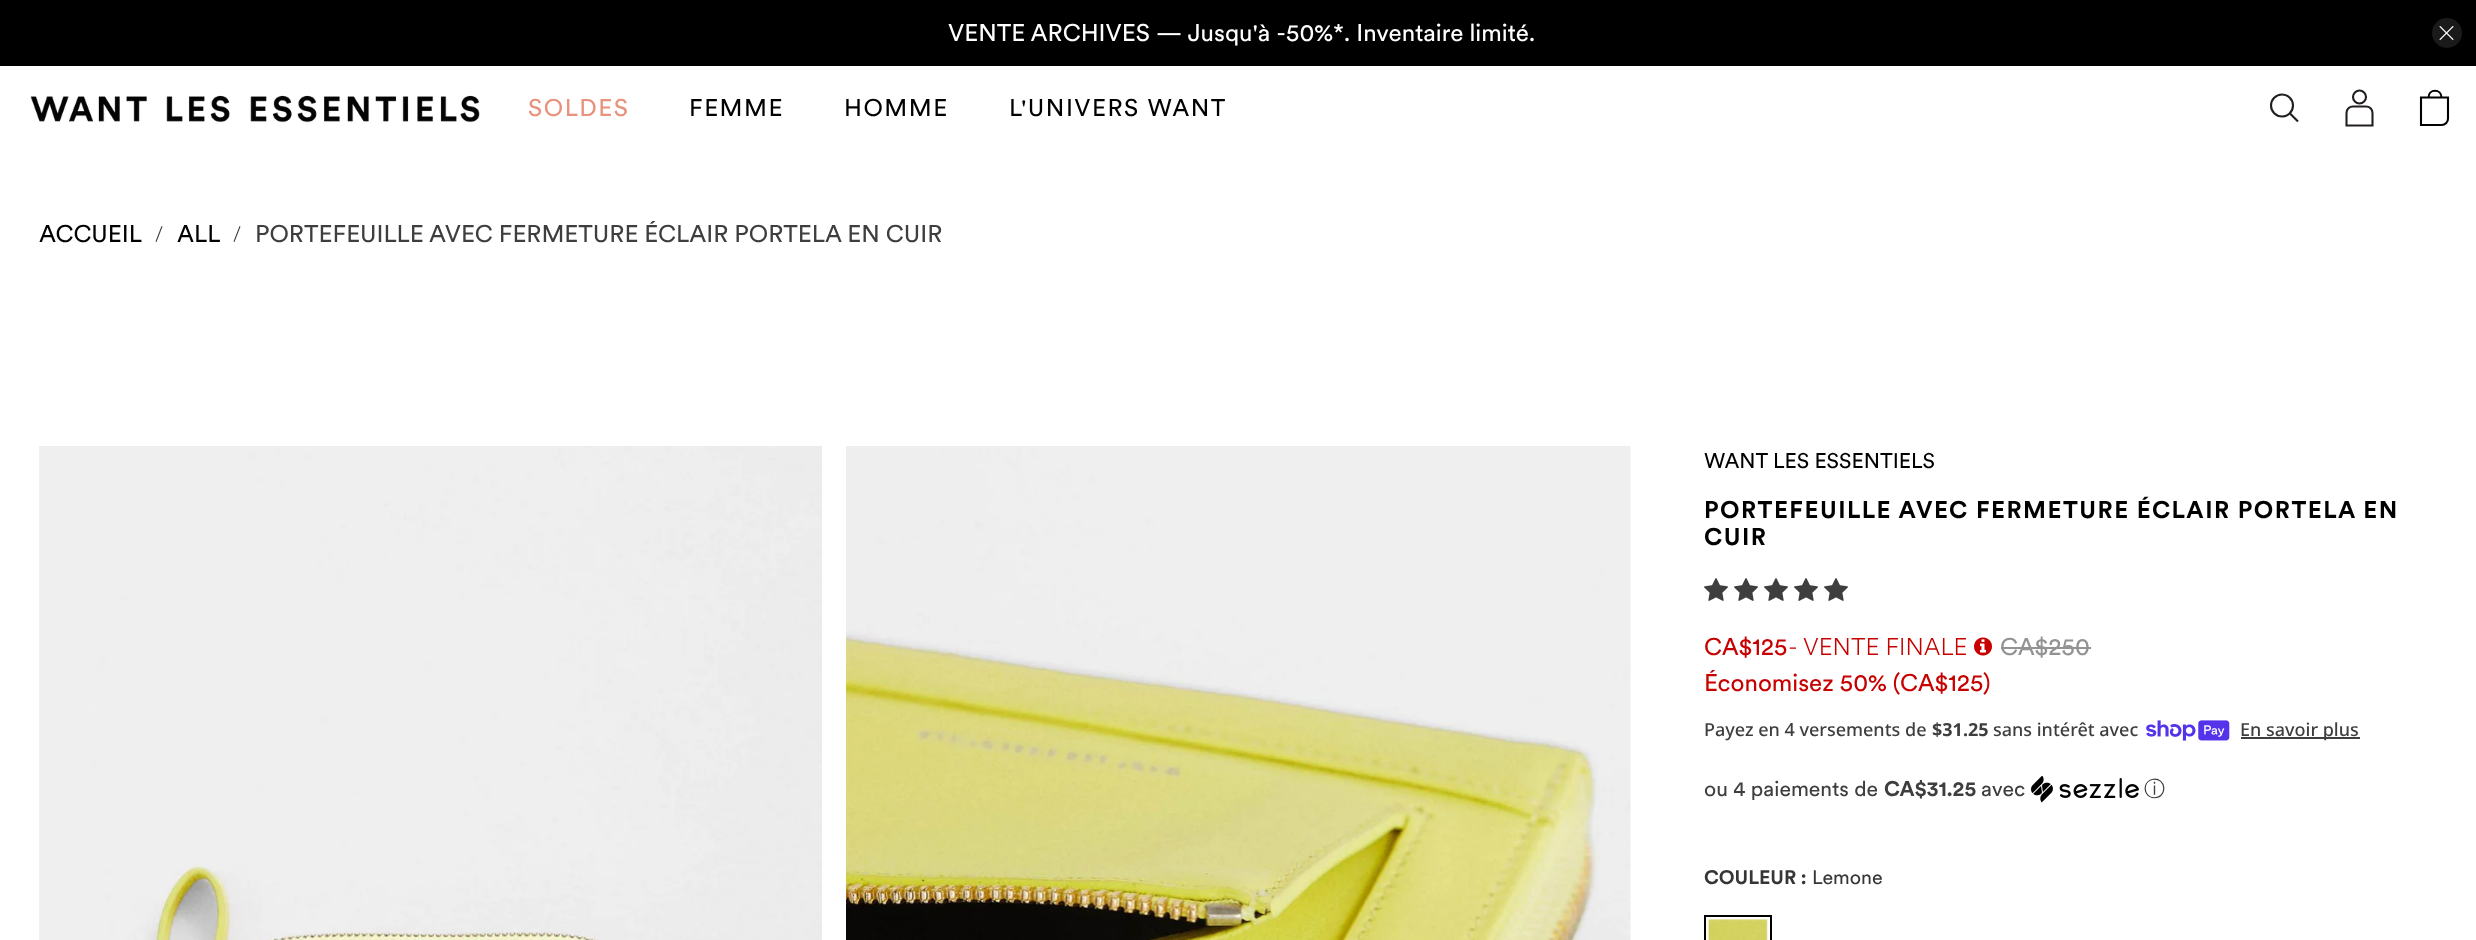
<svg xmlns="http://www.w3.org/2000/svg" width="2476" height="940">
<rect width="100%" height="100%" fill="#fff"/>
<rect width="2476" height="66" fill="#000"/>
<text x="948" y="41" style="font-family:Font;font-size:24px;fill:#fff">VENTE ARCHIVES — Jusqu'à -50%*. Inventaire limité.</text>
<circle cx="2447" cy="33" r="15" fill="#1a1a1a"/>
<image x="2439" y="26" width="15" height="15" href="media/1.png"/>
<image x="30" y="95" width="450" height="28" href="media/2.png"/>
<text x="528" y="116" style="font-family:Font;font-size:24px;letter-spacing:1.5px;fill:#e8927c">SOLDES</text>
<text x="689" y="116" style="font-family:Font;font-size:24px;letter-spacing:1.5px;fill:#000">FEMME</text>
<text x="844" y="116" style="font-family:Font;font-size:24px;letter-spacing:1.5px;fill:#000">HOMME</text>
<text x="1009" y="116" style="font-family:Font;font-size:24px;letter-spacing:1.5px;fill:#000">L'UNIVERS WANT</text>
<circle cx="2282" cy="105.5" r="11" fill="none" stroke="#231f20" stroke-width="2.1"/>
<path d="M2298 121.5l-8-8" fill="none" stroke="#231f20" stroke-width="2.1"/>
<path d="M2359.5 106.5h6.5c3.5 0 6.5 2.5 6.5 6.5v12.5h-26v-12.5c0-4 3-6.5 6.5-6.5h6.5" fill="none" stroke="#231f20" stroke-width="2.1"/>
<circle cx="2359.5" cy="97" r="6.5" fill="none" stroke="#231f20" stroke-width="2.1"/>
<path d="M2448 97.5v21c0 3.5-2.5 6.5-6.5 6.5h-20.5v-27.5zm-19.5 0c0-9 13-9 13 0m.5 27.5h-.5" fill="none" stroke="#000" stroke-width="2.1"/>
<text x="39" y="242" style="font-family:Font;font-size:24px;fill:#000">ACCUEIL</text>
<path d="M155.5 241.5l6-15.5l1 .5l-6 15.5z" fill="#3e3e3e"/>
<text x="177" y="242" style="font-family:Font;font-size:24px;fill:#000">ALL</text>
<path d="M233.5 241.5l6-15.5l1 .5l-6 15.5z" fill="#3e3e3e"/>
<text x="255" y="242" style="font-family:Font;font-size:24px;fill:#3e3e3e">PORTEFEUILLE AVEC FERMETURE ÉCLAIR PORTELA EN CUIR</text>
<image x="39" y="446" width="783" height="494" href="media/3.png"/>
<image x="846" y="446" width="785" height="494" href="media/4.png"/>
<text x="1704" y="468" style="font-family:Font;font-size:21px;fill:#000">WANT LES ESSENTIELS</text>
<text x="1704" y="518" style="font-family:Font;font-size:24px;font-weight:bold;letter-spacing:1.5px;fill:#000">PORTEFEUILLE AVEC FERMETURE ÉCLAIR PORTELA EN</text>
<text x="1704" y="545" style="font-family:Font;font-size:24px;font-weight:bold;letter-spacing:1.5px;fill:#000">CUIR</text>
<image x="1704" y="578" width="24" height="23" href="media/5.png"/>
<image x="1734" y="578" width="24" height="23" href="media/5.png"/>
<image x="1764" y="578" width="24" height="23" href="media/5.png"/>
<image x="1794" y="578" width="24" height="23" href="media/5.png"/>
<image x="1824" y="578" width="24" height="23" href="media/5.png"/>
<text x="1704" y="655" style="font-family:Font;font-size:24px;fill:#c70000">CA$125</text>
<text x="1788" y="655" style="font-family:Font;font-size:24px;font-weight:300;fill:#c70000">- VENTE FINALE</text>
<image x="1974" y="637" width="18" height="19" href="media/6.png"/>
<text x="2000" y="655" style="font-family:Font;font-size:24px;fill:#939393">CA$250</text>
<rect x="2001" y="647" width="90" height="2" fill="#939393"/>
<text x="1704" y="691" style="font-family:Font;font-size:24px;fill:#c70000">Économisez 50% (</text>
<text x="1900" y="691" style="font-family:Font;font-size:24px;fill:#c70000">CA$125)</text>
<text x="1704" y="736" style="font-family:Noto Sans;font-size:18px;font-weight:500;fill:#3e3e3e">Payez en 4 versements de</text>
<text x="1932" y="736" style="font-family:Noto Sans;font-size:18px;font-weight:bold;fill:#3e3e3e">$31.25</text>
<text x="1993" y="736" style="font-family:Noto Sans;font-size:18px;font-weight:500;fill:#3e3e3e">sans intérêt avec</text>
<image x="2146" y="720" width="84" height="21" href="media/7.png"/>
<rect x="2241" y="737" width="119" height="2" fill="#3e3e3e"/>
<text x="2240" y="736" style="font-family:Noto Sans;font-size:18px;font-weight:500;fill:#3e3e3e">En savoir plus</text>
<text x="1704" y="796" style="font-family:Font;font-size:21px;fill:#3e3e3e">ou 4 paiements de</text>
<text x="1884" y="796" style="font-family:Font;font-size:21px;font-weight:bold;fill:#3e3e3e">CA$31.25</text>
<text x="1981" y="796" style="font-family:Font;font-size:21px;fill:#3e3e3e">avec</text>
<image x="2031" y="776" width="108" height="27" href="media/8.png"/>
<text x="2144" y="796" style="font-family:WenQuanYi Zen Hei;font-size:21px;font-weight:500;fill:#3e3e3e">ⓘ</text>
<text x="1704" y="884" style="font-family:Font;font-size:19.5px;font-weight:bold;fill:#363636">COULEUR :</text>
<text x="1812" y="884" style="font-family:Font;font-size:19.5px;fill:#363636">Lemone</text>
<rect x="1705" y="916" width="66" height="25" fill="none" stroke="#000" stroke-width="2"/>
<image x="1707" y="919" width="61" height="21" href="media/9.png"/>
</svg>
